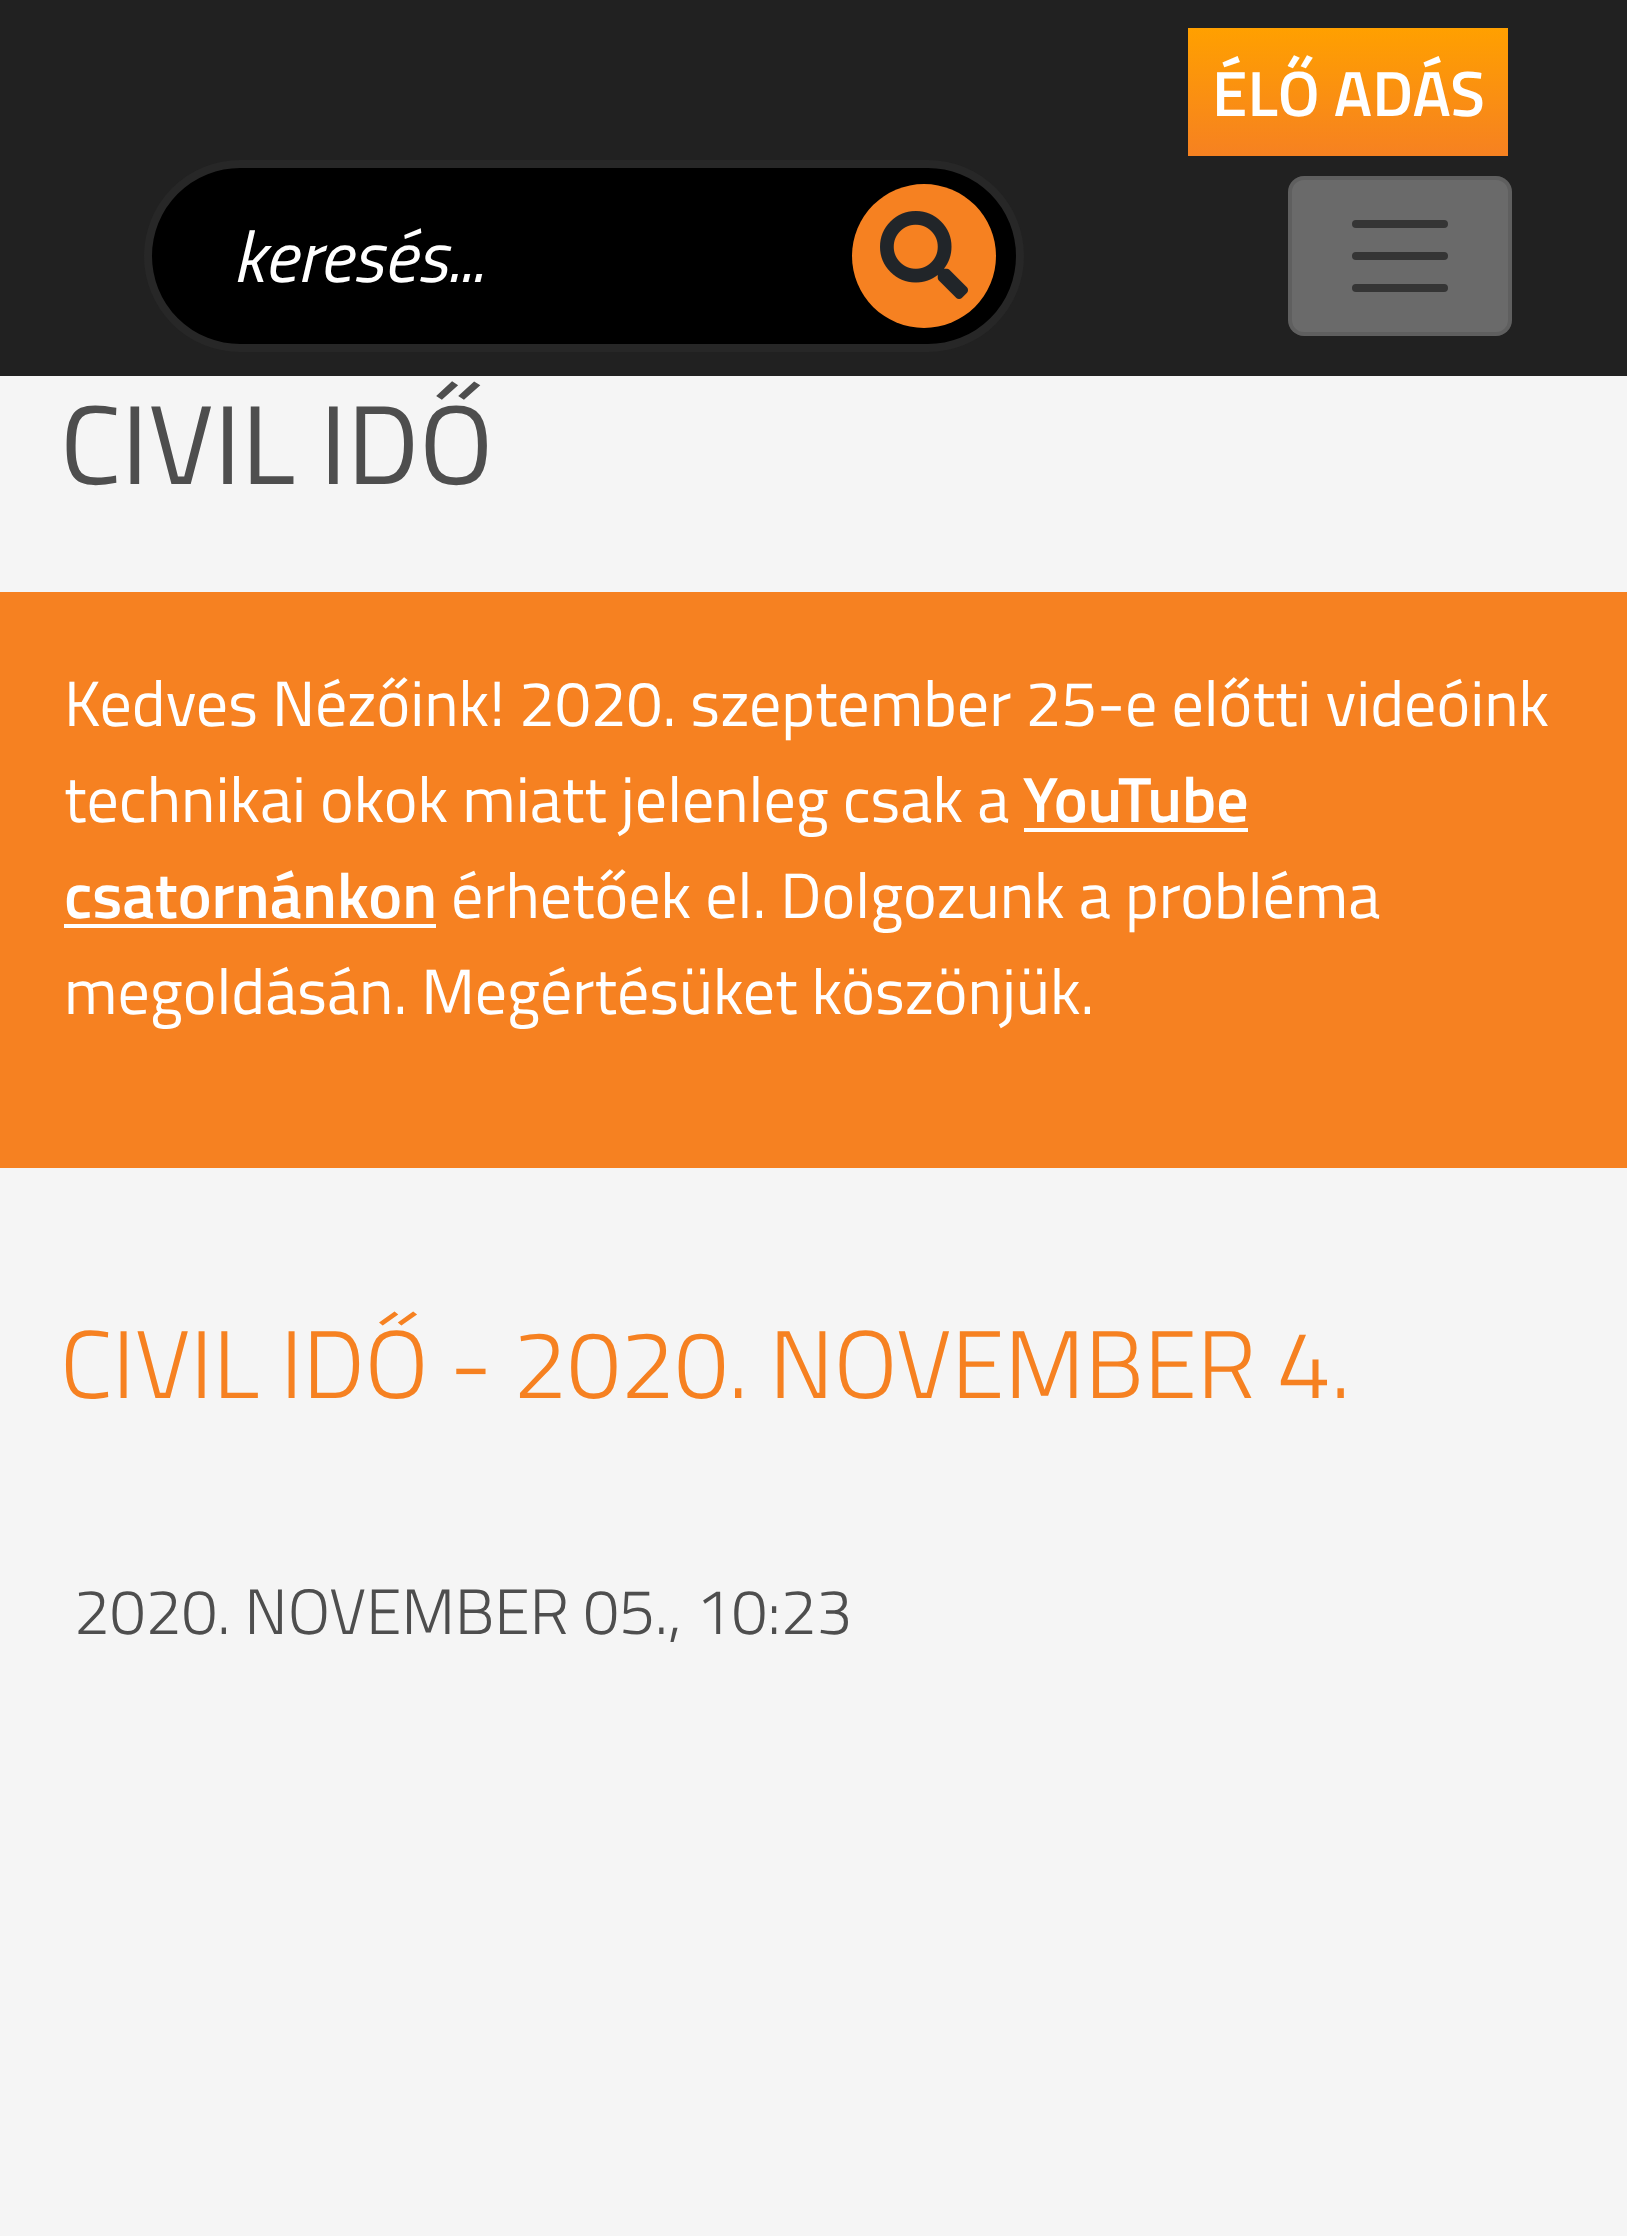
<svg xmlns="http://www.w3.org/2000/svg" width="1627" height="2236">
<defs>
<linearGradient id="g1" gradientUnits="userSpaceOnUse" x1="1348" y1="28" x2="1348" y2="156"><stop offset="0" stop-color="#ffa000"/><stop offset="1" stop-color="#f68121"/></linearGradient>
</defs>
<rect width="100%" height="100%" fill="#f5f5f5"/>
<rect width="1627" height="376" fill="#212121"/>
<rect x="1188" y="28" width="320" height="128" fill="url(#g1)"/>
<text x="1212" y="116" style="font-family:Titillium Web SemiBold;font-size:64px;font-weight:600;fill:#fff">ÉLŐ ADÁS</text>
<rect x="148" y="164" width="872" height="184" rx="92" fill="#000" stroke="#272727" stroke-width="8"/>
<text x="233" y="282" style="font-family:Titillium Web;font-size:72px;font-style:italic;fill:#fff">keresés...</text>
<circle cx="924" cy="256" r="72" fill="#f68121"/>
<image x="880" y="211" width="88" height="88" href="media/1.png"/>
<rect x="1288" y="176" width="224" height="160" rx="16" fill="#ffffff54"/>
<rect x="1290" y="178" width="220" height="156" rx="14" fill="none" stroke="#0000001a" stroke-width="4"/>
<path d="M1356 224h88m-88 32h88m-88 32h88" fill="none" stroke="#353535" stroke-width="8" stroke-linecap="round"/>
<text x="60" y="484" style="font-family:Titillium Web;font-size:112px;fill:#4e4e4e">CIVIL IDŐ</text>
<rect y="592" width="1627" height="576" fill="#f68121"/>
<text x="64" y="726" style="font-family:Titillium Web;font-size:64px;fill:#fff">Kedves Nézőink! 2020. szeptember 25-e előtti videóink</text>
<text x="64" y="822" style="font-family:Titillium Web;font-size:64px;fill:#fff">technikai okok miatt jelenleg csak a</text>
<text x="1023" y="822" style="font-family:Titillium Web SemiBold;font-size:64px;font-weight:600;fill:#fff">YouTube</text>
<rect x="1024" y="828" width="224" height="4" fill="#fff"/>
<text x="64" y="918" style="font-family:Titillium Web SemiBold;font-size:64px;font-weight:600;fill:#fff">csatornánkon</text>
<rect x="64" y="924" width="372" height="4" fill="#fff"/>
<text x="451" y="918" style="font-family:Titillium Web;font-size:64px;fill:#fff">érhetőek el. Dolgozunk a probléma</text>
<text x="64" y="1014" style="font-family:Titillium Web;font-size:64px;fill:#fff">megoldásán. Megértésüket köszönjük.</text>
<text x="60" y="1398" style="font-family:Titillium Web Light;font-size:96px;font-weight:300;fill:#f68121">CIVIL IDŐ - 2020. NOVEMBER 4.</text>
<text x="74" y="1634" style="font-family:Titillium Web Light;font-size:64px;font-weight:300;fill:#4e4e4e">2020. NOVEMBER 05., 10:23</text>
</svg>
